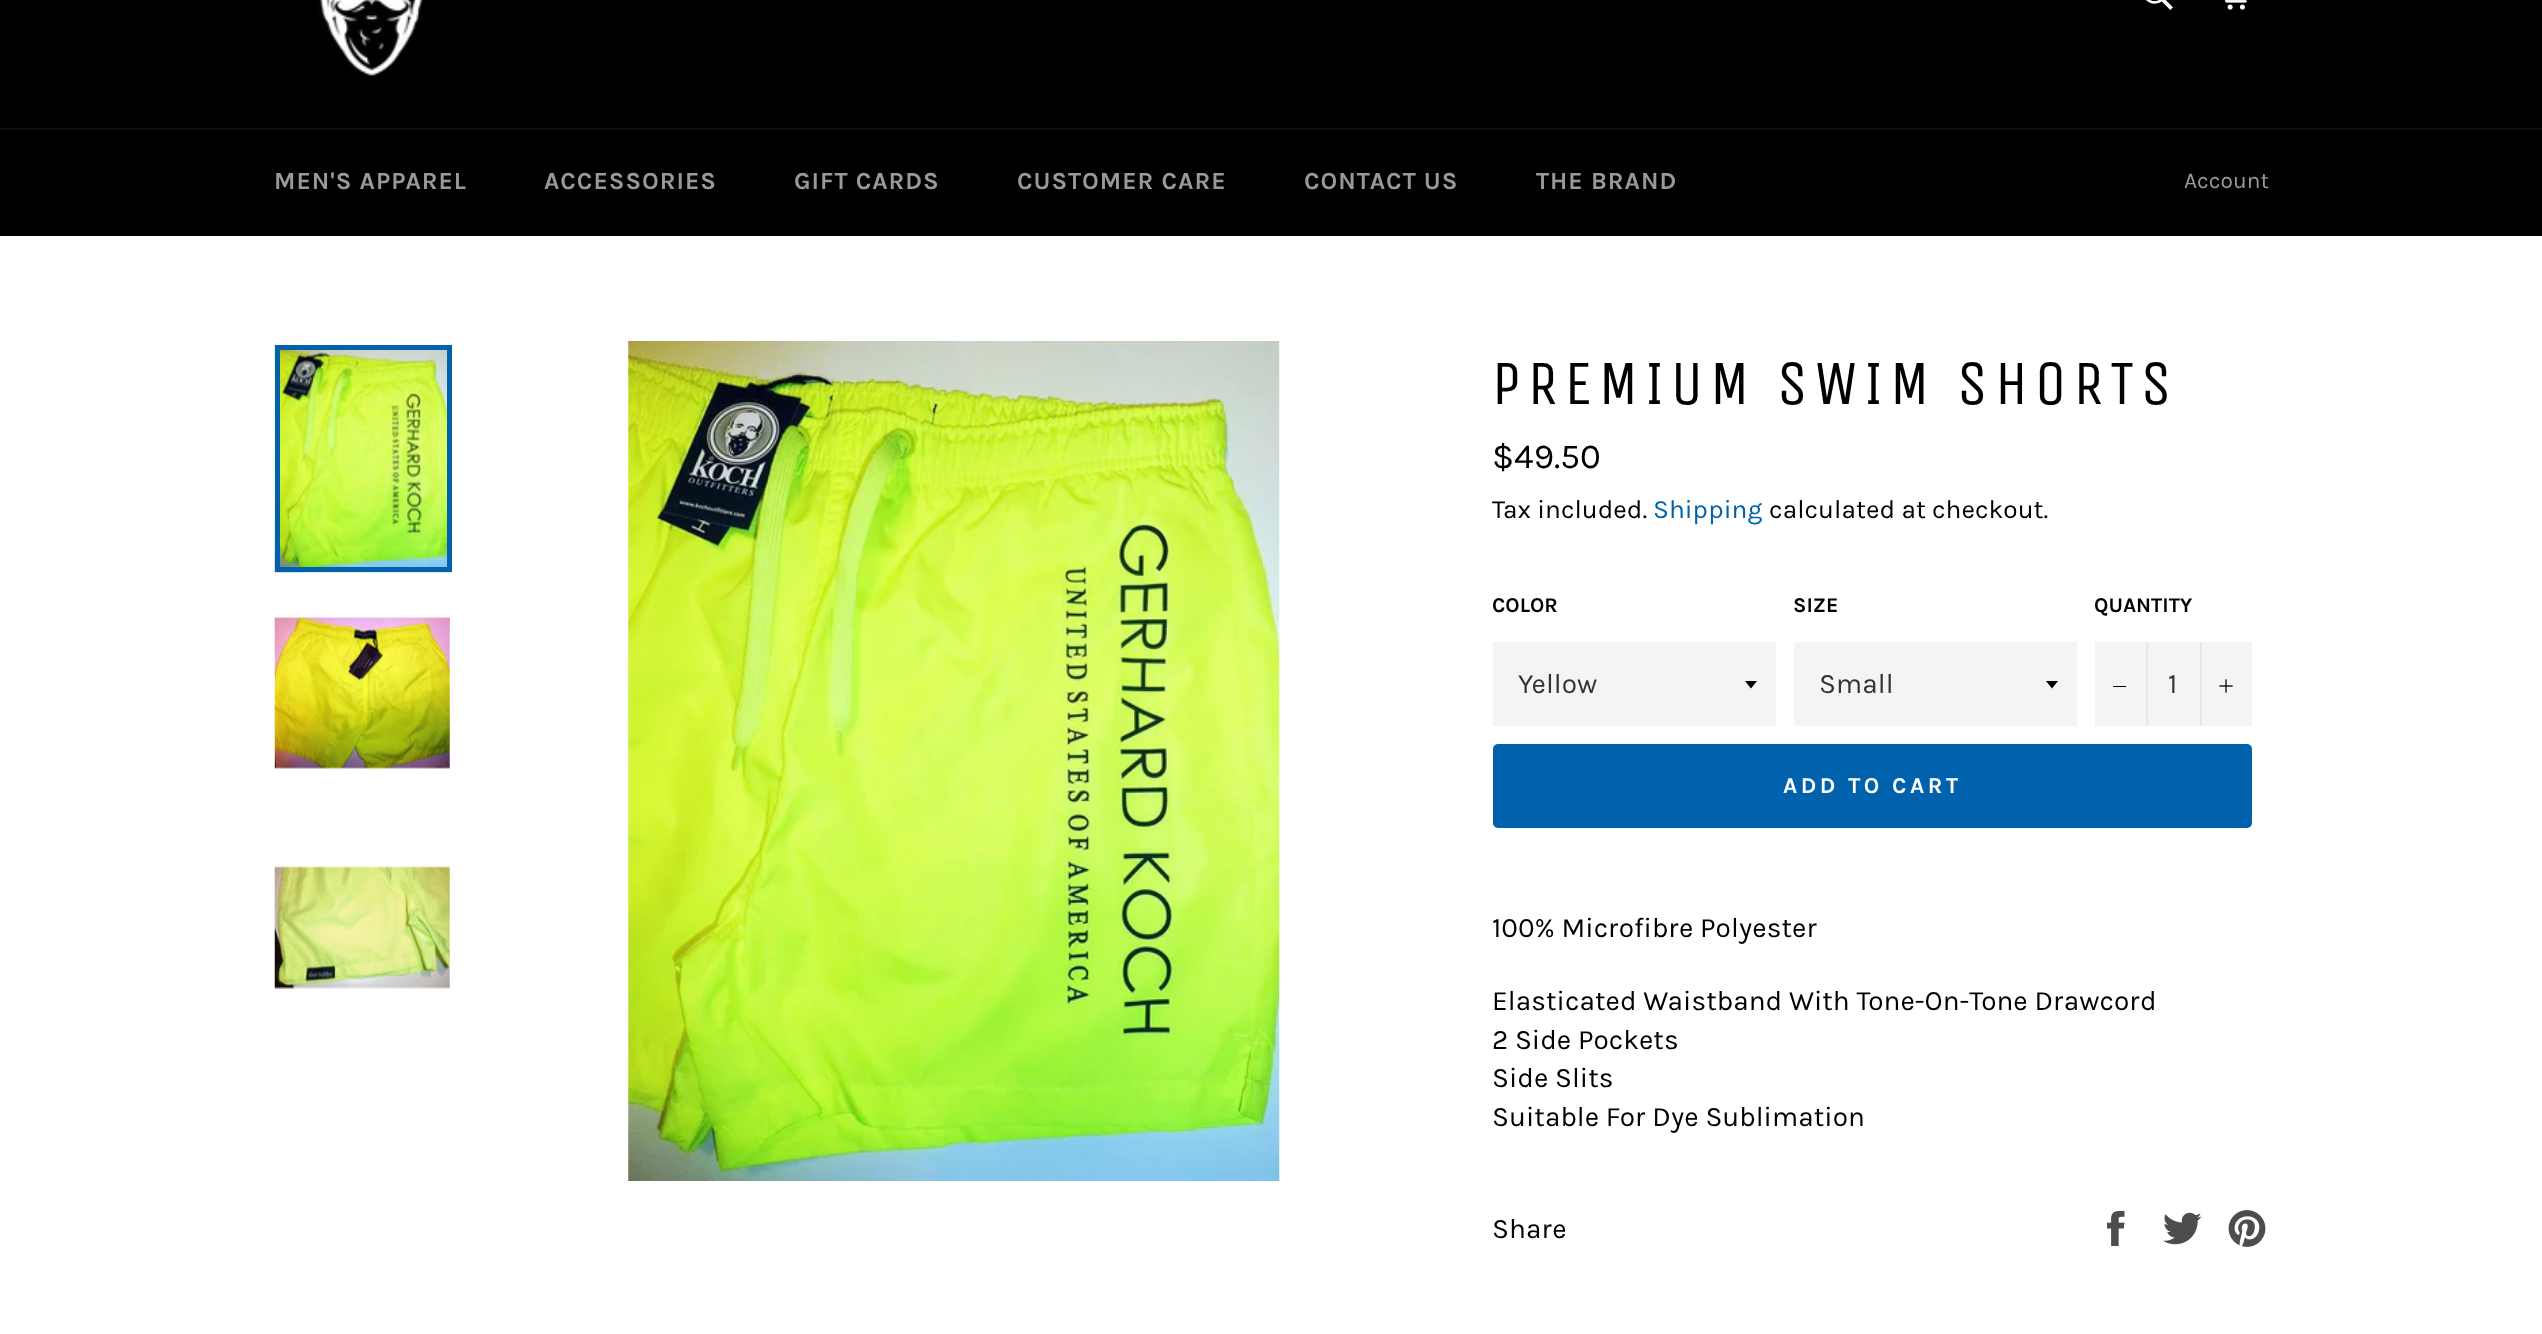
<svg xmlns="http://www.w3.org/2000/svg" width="2542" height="1334">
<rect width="100%" height="100%" fill="#fff"/>
<rect width="2542" height="236" fill="#000"/>
<image x="317" y="0" width="106" height="76" href="media/1.png"/>
<image x="2146" y="0" width="27" height="10" href="media/2.png"/>
<image x="2224" y="0" width="23" height="10" href="media/3.png"/>
<rect y="128" width="2542" height="2" fill="#0d0d0d"/>
<text x="274" y="189" style="font-family:Karla;font-size:24.5px;font-weight:bold;letter-spacing:1px;fill:#999">MEN'S APPAREL</text>
<text x="544" y="189" style="font-family:Karla;font-size:24.5px;font-weight:bold;letter-spacing:1px;fill:#999">ACCESSORIES</text>
<text x="794" y="189" style="font-family:Karla;font-size:24.5px;font-weight:bold;letter-spacing:1px;fill:#999">GIFT CARDS</text>
<text x="1017" y="189" style="font-family:Karla;font-size:24.5px;font-weight:bold;letter-spacing:1px;fill:#999">CUSTOMER CARE</text>
<text x="1304" y="189" style="font-family:Karla;font-size:24.5px;font-weight:bold;letter-spacing:1px;fill:#999">CONTACT US</text>
<text x="1536" y="189" style="font-family:Karla;font-size:24.5px;font-weight:bold;letter-spacing:1px;fill:#999">THE BRAND</text>
<text x="2184" y="188" style="font-family:Karla;font-size:22.75px;fill:#999">Account</text>
<image x="274" y="345" width="176" height="228" href="media/4.png"/>
<rect x="277.5" y="347.5" width="172" height="222" fill="none" stroke="#0062ac" stroke-width="5"/>
<image x="274" y="617" width="176" height="152" href="media/5.png"/>
<image x="274" y="866" width="176" height="123" href="media/6.png"/>
<image x="628" y="341" width="652" height="840" href="media/7.png"/>
<text x="1492" y="404" style="font-family:Unica One;font-size:63px;letter-spacing:6.25px;fill:#000">PREMIUM SWIM SHORTS</text>
<text x="1492" y="468" style="font-family:Karla;font-size:35px;fill:#000">$49.50</text>
<text x="1492" y="518" style="font-family:Karla;font-size:26.25px;fill:#000">Tax included.</text>
<text x="1653" y="518" style="font-family:Karla;font-size:26.25px;fill:#0062ac">Shipping</text>
<text x="1769" y="518" style="font-family:Karla;font-size:26.25px;fill:#000">calculated at checkout.</text>
<text x="1492" y="612" style="font-family:Karla;font-size:21px;font-weight:bold;fill:#000">COLOR</text>
<rect x="1493" y="642" width="283" height="84" fill="#f4f4f4"/>
<path d="M1745 681l6 7.5l6-7.5z" fill="#000"/>
<text x="1518" y="693" style="font-family:Karla;font-size:28px;fill:#333">Yellow</text>
<text x="1793" y="612" style="font-family:Karla;font-size:21px;font-weight:bold;fill:#000">SIZE</text>
<rect x="1794" y="642" width="283" height="84" fill="#f4f4f4"/>
<path d="M2046 681l6 7.5l6-7.5z" fill="#000"/>
<text x="1819" y="693" style="font-family:Karla;font-size:28px;fill:#333">Small</text>
<text x="2094" y="612" style="font-family:Karla;font-size:21px;font-weight:bold;fill:#000">QUANTITY</text>
<rect x="2095" y="642" width="157" height="84" fill="#f4f4f4"/>
<rect x="2146" y="642" width="2" height="84" fill="#e7e7e7"/>
<rect x="2113" y="686" width="13" height="1" fill="#000"/>
<text x="2168" y="693" style="font-family:Karla;font-size:28px;fill:#333">1</text>
<rect x="2200" y="642" width="2" height="84" fill="#e7e7e7"/>
<image x="2219" y="679" width="14" height="14" href="media/8.png"/>
<rect x="1493" y="744" width="759" height="84" rx="5" fill="#0062ac"/>
<text x="1783" y="793" style="font-family:Karla;font-size:22.75px;font-weight:bold;letter-spacing:3.5px;fill:#fff">ADD TO CART</text>
<text x="1492" y="937" style="font-family:Karla;font-size:28px;fill:#000">100% Microfibre Polyester</text>
<text x="1492" y="1010" style="font-family:Karla;font-size:28px;fill:#000">Elasticated Waistband With Tone-On-Tone Drawcord</text>
<text x="1492" y="1049" style="font-family:Karla;font-size:28px;fill:#000">2 Side Pockets</text>
<text x="1492" y="1087" style="font-family:Karla;font-size:28px;fill:#000">Side Slits</text>
<text x="1492" y="1126" style="font-family:Karla;font-size:28px;fill:#000">Suitable For Dye Sublimation</text>
<text x="1492" y="1238" style="font-family:Karla;font-size:28px;fill:#000">Share</text>
<image x="2107" y="1211" width="18" height="35" href="media/9.png"/>
<image x="2163" y="1212" width="39" height="33" href="media/10.png"/>
<image x="2228" y="1210" width="38" height="37" href="media/11.png"/>
</svg>
